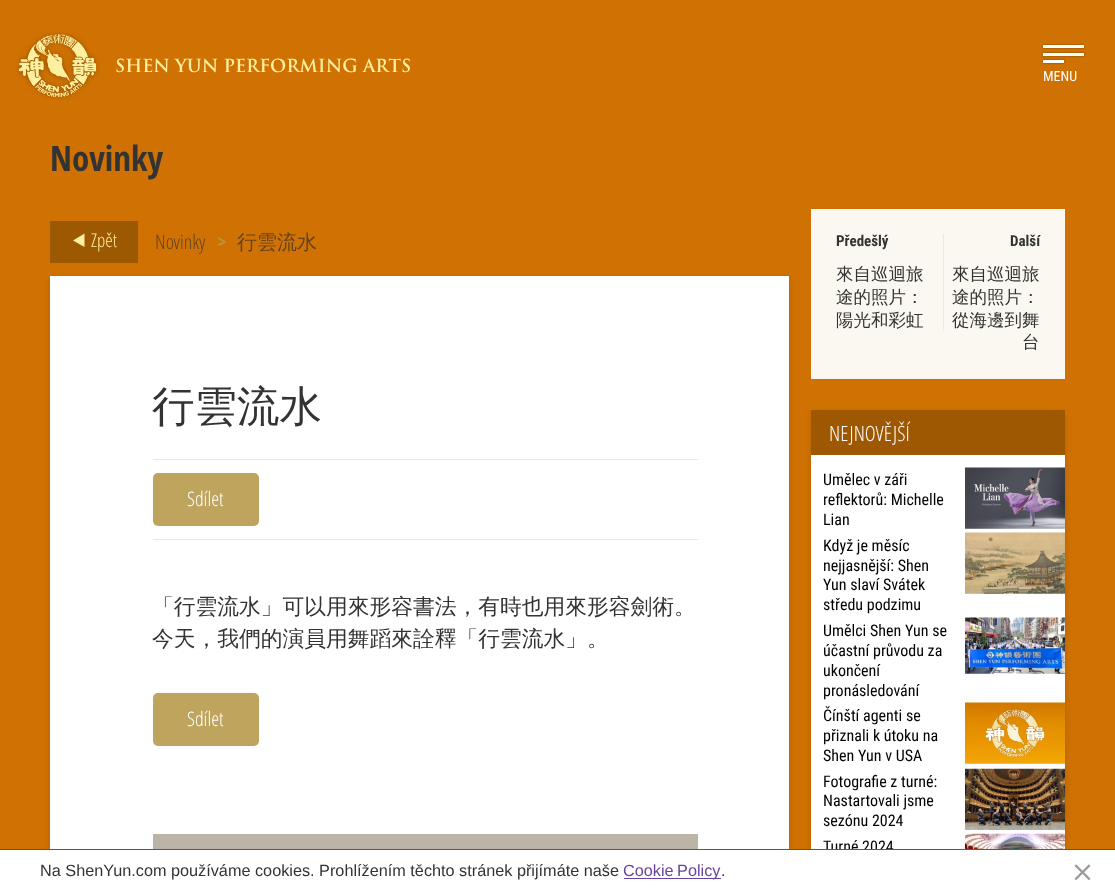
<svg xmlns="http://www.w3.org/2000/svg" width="1115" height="893">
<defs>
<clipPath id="clip1"><path d="M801 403h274v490h-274zm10 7h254v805h-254z" clip-rule="evenodd"/></clipPath>
</defs>
<rect width="100%" height="100%" fill="#d07203"/>
<image x="16" y="32" width="84" height="68" href="media/1.png"/>
<text x="115" y="72" style="font-family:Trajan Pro;font-size:17.5px;font-weight:bold;fill:#fff09f">SHEN YUN PERFORMING ARTS</text>
<rect x="1043" y="45" width="41" height="3" fill="#00000066" filter="blur(1px)"/>
<rect x="1043" y="45" width="41" height="3" fill="#fff"/>
<rect x="1043" y="53" width="41" height="3" fill="#00000066" filter="blur(1px)"/>
<rect x="1043" y="53" width="41" height="3" fill="#fff"/>
<rect x="1043" y="60" width="21" height="3" fill="#00000066" filter="blur(1px)"/>
<rect x="1043" y="60" width="21" height="3" fill="#fff"/>
<text x="1043" y="81" style="font-family:Roboto Condensed;font-size:14px;fill:#fff">MENU</text>
<text x="50" y="171" style="font-family:Open Sans Condensed;font-size:35px;font-weight:bold;fill:#333">Novinky</text>
<rect x="50" y="221" width="88" height="42" fill="#9d5802"/>
<path d="M84.5 233.5v13.5l-11.5-6.5z" fill="#fff09f"/>
<text x="91" y="247" style="font-family:Open Sans Condensed;font-size:19px;font-weight:300;fill:#fff09f">Zpět</text>
<text x="155" y="249" style="font-family:Open Sans Condensed;font-size:20px;font-weight:300;fill:#62431e">Novinky</text>
<text x="217" y="248" style="font-family:Roboto Condensed;font-size:20px;fill:#bc993f">&gt;</text>
<text x="237" y="249" style="font-family:WenQuanYi Zen Hei;font-size:20px;font-weight:500;fill:#62431e">行雲流水</text>
<rect x="50" y="279" width="739" height="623" fill="#00000026" filter="blur(3px)"/>
<rect x="50" y="276" width="739" height="573" fill="#fff"/>
<text x="152" y="421" style="font-family:WenQuanYi Zen Hei;font-size:42.5px;font-weight:500;fill:#333">行雲流水</text>
<rect x="153" y="459" width="545" height="1" fill="#e9e8e4"/>
<rect x="153" y="539" width="545" height="1" fill="#e9e8e4"/>
<rect x="153" y="473" width="106" height="53" rx="5" fill="#bfa45e"/>
<text x="187" y="506" style="font-family:Open Sans Condensed;font-size:20px;font-weight:300;fill:#fff">Sdílet</text>
<text x="152" y="614" style="font-family:WenQuanYi Zen Hei;font-size:21.75px;font-weight:500;fill:#333">「行雲流水」可以用來形容書法，有時也用來形容劍術。</text>
<text x="152" y="646" style="font-family:WenQuanYi Zen Hei;font-size:21.75px;font-weight:500;fill:#333">今天，我們的演員用舞蹈來詮釋「行雲流水」。</text>
<rect x="153" y="693" width="106" height="53" rx="5" fill="#bfa45e"/>
<text x="187" y="726" style="font-family:Open Sans Condensed;font-size:20px;font-weight:300;fill:#fff">Sdílet</text>
<rect x="153" y="834" width="545" height="15" fill="#bcb4a6"/>
<rect x="811" y="209" width="254" height="170" fill="#faf8f0"/>
<rect x="811" y="379" width="254" height="1" fill="#cc7000"/>
<rect x="943" y="234" width="1" height="97" fill="#e9e9e9"/>
<text x="836" y="246" style="font-family:Roboto Condensed;font-size:15px;font-weight:bold;fill:#333">Předešlý</text>
<text x="836" y="280" style="font-family:WenQuanYi Zen Hei;font-size:17.5px;font-weight:500;fill:#333">來自巡迴旅</text>
<text x="836" y="303" style="font-family:WenQuanYi Zen Hei;font-size:17.5px;font-weight:500;fill:#333">途的照片：</text>
<text x="836" y="326" style="font-family:WenQuanYi Zen Hei;font-size:17.5px;font-weight:500;fill:#333">陽光和彩虹</text>
<text x="1010" y="246" style="font-family:Roboto Condensed;font-size:15px;font-weight:bold;fill:#333">Další</text>
<text x="952" y="280" style="font-family:WenQuanYi Zen Hei;font-size:17.5px;font-weight:500;fill:#333">來自巡迴旅</text>
<text x="952" y="303" style="font-family:WenQuanYi Zen Hei;font-size:17.5px;font-weight:500;fill:#333">途的照片：</text>
<text x="952" y="326" style="font-family:WenQuanYi Zen Hei;font-size:17.5px;font-weight:500;fill:#333">從海邊到舞</text>
<text x="1022" y="348" style="font-family:WenQuanYi Zen Hei;font-size:17.5px;font-weight:500;fill:#333">台</text>
<g clip-path="url(#clip1)">
<rect x="811" y="413" width="254" height="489" fill="#00000026" filter="blur(3px)"/>
</g>
<rect x="811" y="410" width="254" height="45" fill="#3f290059"/>
<text x="829" y="441" style="font-family:Open Sans Condensed;font-size:21px;font-weight:300;fill:#fff">NEJNOVĚJŠÍ</text>
<rect x="811" y="455" width="254" height="394" fill="#fff"/>
<text x="823" y="485" style="font-family:Roboto Condensed;font-size:16px;fill:#000">Umělec v záři</text>
<text x="823" y="505" style="font-family:Roboto Condensed;font-size:16px;fill:#000">reflektorů: Michelle</text>
<text x="823" y="525" style="font-family:Roboto Condensed;font-size:16px;fill:#000">Lian</text>
<image x="965" y="467" width="100" height="62" href="media/2.png"/>
<text x="823" y="551" style="font-family:Roboto Condensed;font-size:16px;fill:#000">Když je měsíc</text>
<text x="823" y="571" style="font-family:Roboto Condensed;font-size:16px;fill:#000">nejjasnější: Shen</text>
<text x="823" y="590" style="font-family:Roboto Condensed;font-size:16px;fill:#000">Yun slaví Svátek</text>
<text x="823" y="610" style="font-family:Roboto Condensed;font-size:16px;fill:#000">středu podzimu</text>
<image x="965" y="532" width="100" height="62" href="media/3.png"/>
<text x="823" y="636" style="font-family:Roboto Condensed;font-size:16px;fill:#000">Umělci Shen Yun se</text>
<text x="823" y="656" style="font-family:Roboto Condensed;font-size:16px;fill:#000">účastní průvodu za</text>
<text x="823" y="676" style="font-family:Roboto Condensed;font-size:16px;fill:#000">ukončení</text>
<text x="823" y="696" style="font-family:Roboto Condensed;font-size:16px;fill:#000">pronásledování</text>
<image x="965" y="617" width="100" height="57" href="media/4.png"/>
<text x="823" y="721" style="font-family:Roboto Condensed;font-size:16px;fill:#000">Čínští agenti se</text>
<text x="823" y="741" style="font-family:Roboto Condensed;font-size:16px;fill:#000">přiznali k útoku na</text>
<text x="823" y="761" style="font-family:Roboto Condensed;font-size:16px;fill:#000">Shen Yun v USA</text>
<image x="965" y="702" width="100" height="62" href="media/5.png"/>
<text x="823" y="787" style="font-family:Roboto Condensed;font-size:16px;fill:#000">Fotografie z turné:</text>
<text x="823" y="806" style="font-family:Roboto Condensed;font-size:16px;fill:#000">Nastartovali jsme</text>
<text x="823" y="826" style="font-family:Roboto Condensed;font-size:16px;fill:#000">sezónu 2024</text>
<image x="965" y="768" width="100" height="62" href="media/6.png"/>
<text x="823" y="852" style="font-family:Roboto Condensed;font-size:16px;fill:#000">Turné 2024</text>
<image x="965" y="833" width="100" height="16" href="media/7.png"/>
<rect y="850" width="1115" height="43" fill="#fff"/>
<rect y="849" width="1115" height="1" fill="#68449e"/>
<text x="40" y="876" style="font-family:Liberation Sans;font-size:16.25px;fill:#333">Na ShenYun.com používáme cookies. Prohlížením těchto stránek přijímáte naše</text>
<rect x="624" y="878" width="97" height="1" fill="#68449e"/>
<text x="623" y="876" word-spacing="-1" style="font-family:Liberation Sans;font-size:16.25px;fill:#68449e">Cookie Policy</text>
<text x="721" y="876" style="font-family:Liberation Sans;font-size:16.25px;fill:#333">.</text>
<image x="1074" y="864" width="17" height="17" href="media/8.png"/>
</svg>
